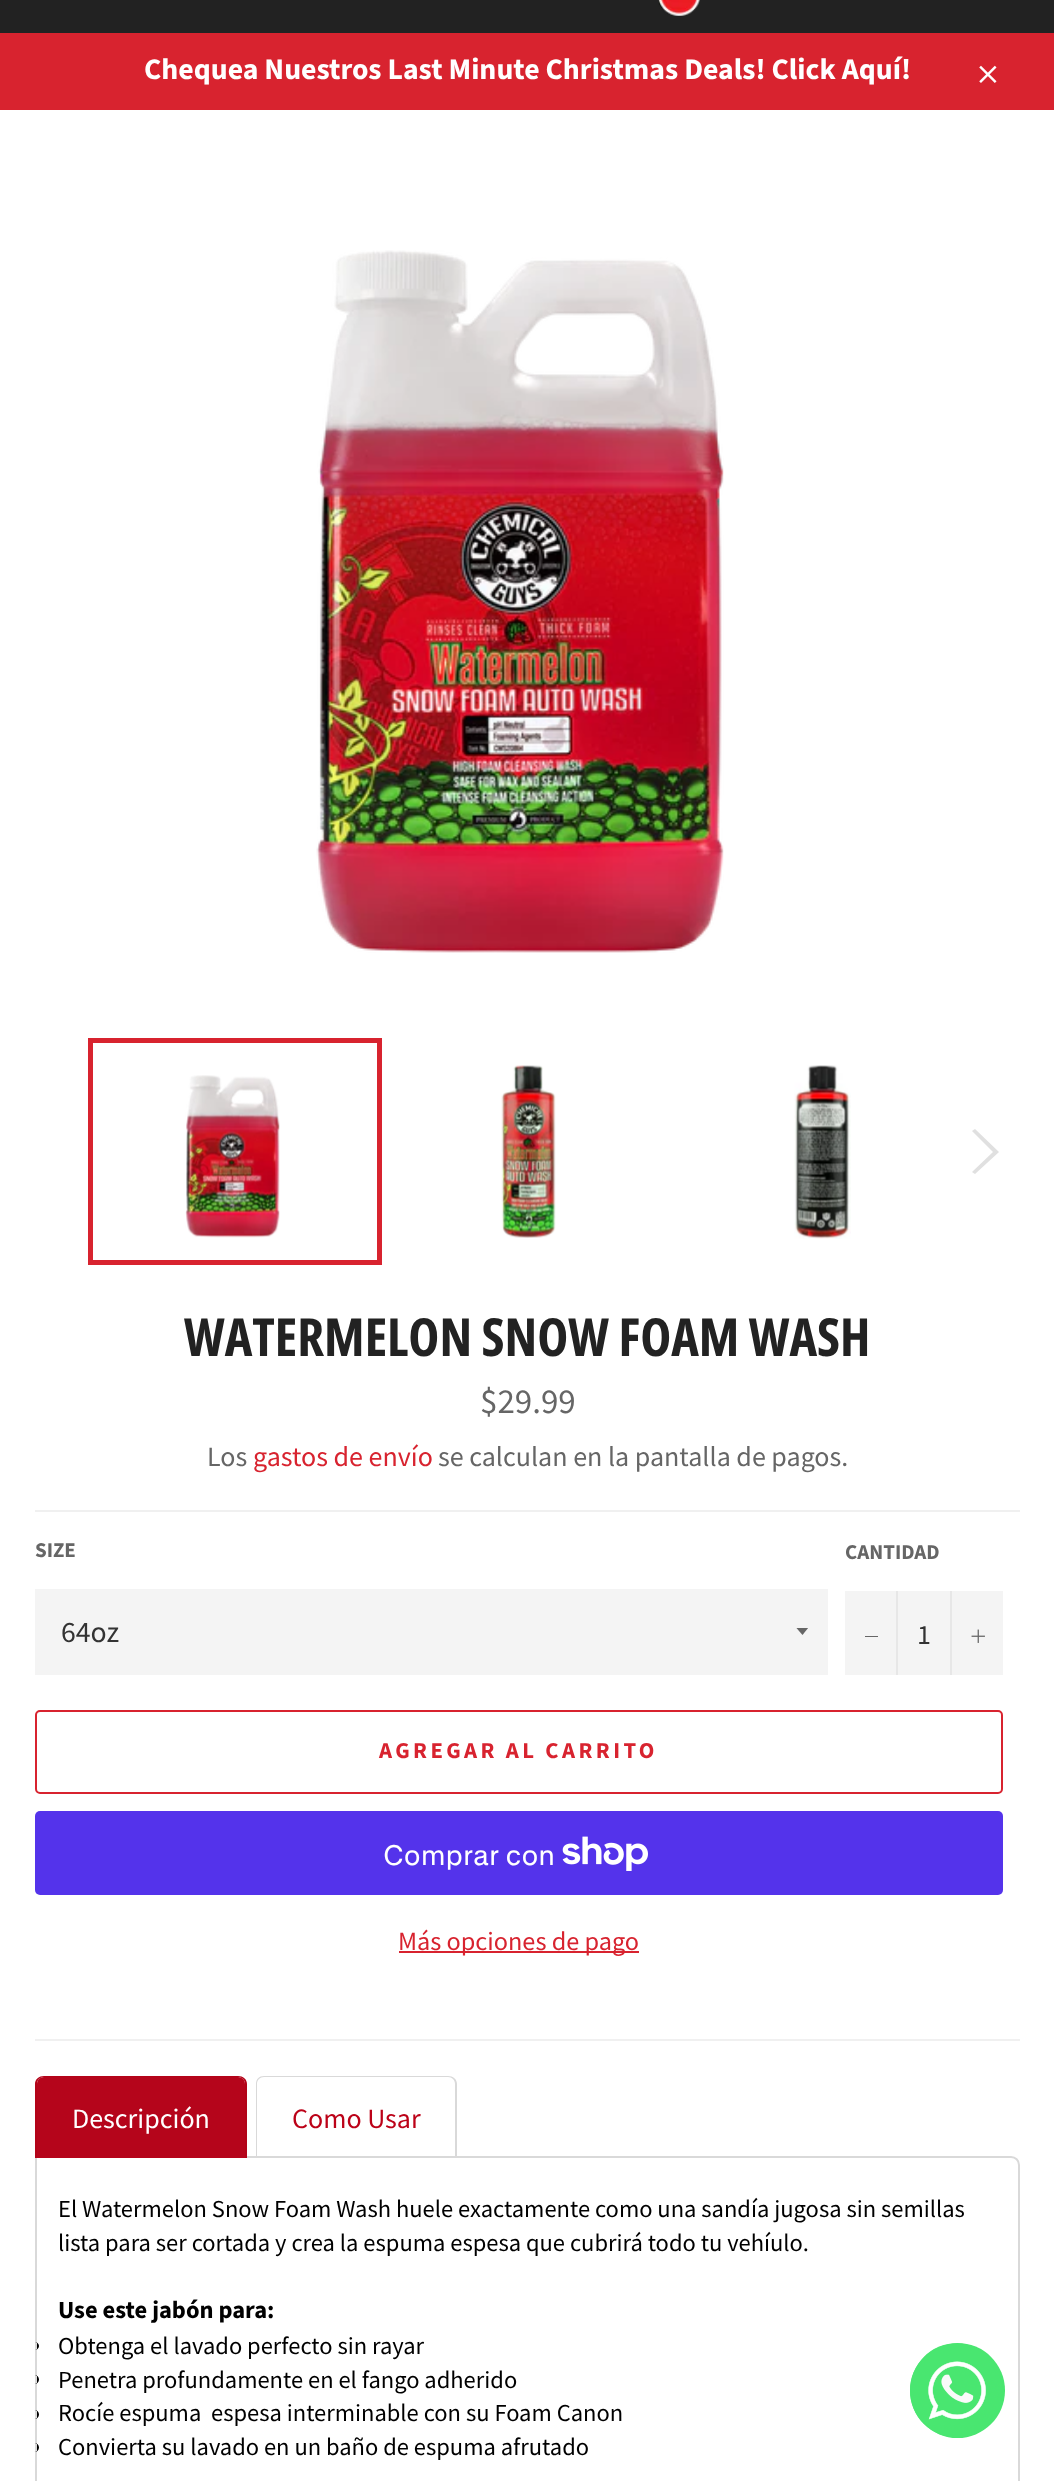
<svg xmlns="http://www.w3.org/2000/svg" width="1054" height="2481">
<defs>
<clipPath id="clip1"><rect x="796" y="1628" width="14" height="8"/></clipPath>
</defs>
<rect width="100%" height="100%" fill="#222"/>
<image x="658" y="0" width="42" height="16" href="media/1.png"/>
<rect y="33" width="1054" height="77" fill="#d8232f"/>
<text x="144" y="79" style="font-family:Source Sans Pro;font-size:29.75px;font-weight:bold;fill:#fff">Chequea Nuestros Last Minute Christmas Deals! Click Aquí!</text>
<image x="979" y="65" width="18" height="18" href="media/2.png"/>
<rect y="110" width="1054" height="2371" fill="#fff"/>
<image x="316" y="250" width="408" height="703" href="media/3.png"/>
<image x="185" y="1075" width="95" height="163" href="media/4.png"/>
<rect x="90.5" y="1040.5" width="289" height="222" fill="none" stroke="#d8232f" stroke-width="5"/>
<image x="501" y="1065" width="55" height="173" href="media/5.png"/>
<image x="794" y="1065" width="57" height="174" href="media/6.png"/>
<path d="M972 1131l3-2l24 23l-24 22l-3-2l21-20z" fill="#e0e0e0"/>
<text x="184" y="1356" style="font-family:Open Sans Condensed;font-size:52.5px;font-weight:bold;fill:#222">WATERMELON SNOW FOAM WASH</text>
<text x="480" y="1413" style="font-family:Source Sans Pro;font-size:35px;fill:#666">$29.99</text>
<text x="207" y="1466" style="font-family:Source Sans Pro;font-size:28px;fill:#666">Los</text>
<text x="253" y="1466" style="font-family:Source Sans Pro;font-size:28px;fill:#d8232f">gastos de envío</text>
<text x="438" y="1466" style="font-family:Source Sans Pro;font-size:28px;fill:#666">se calculan en la pantalla de pagos.</text>
<rect x="35" y="1510" width="985" height="2" fill="#f0f0f0"/>
<text x="35" y="1557" style="font-family:Source Sans Pro;font-size:21px;font-weight:bold;fill:#666">SIZE</text>
<rect x="35" y="1589" width="793" height="86" fill="#f4f4f4"/>
<g clip-path="url(#clip1)">
<path d="M796 1627.5l6.5 7.5l6-7.5z" fill="#666"/>
</g>
<text x="61" y="1642" style="font-family:Source Sans Pro;font-size:29.75px;fill:#333">64oz</text>
<text x="845" y="1559" style="font-family:Source Sans Pro;font-size:21px;font-weight:bold;fill:#666">CANTIDAD</text>
<rect x="845" y="1591" width="158" height="84" fill="#f4f4f4"/>
<rect x="896" y="1591" width="2" height="84" fill="#e7e7e7"/>
<rect x="865" y="1636" width="13" height="1" fill="#666"/>
<text x="917" y="1644" style="font-family:Source Sans Pro;font-size:28px;fill:#333">1</text>
<rect x="950" y="1591" width="2" height="84" fill="#e7e7e7"/>
<image x="971" y="1629" width="14" height="14" href="media/7.png"/>
<rect x="36" y="1711" width="966" height="82" rx="4" fill="none" stroke="#d8232f" stroke-width="2"/>
<text x="379" y="1758" style="font-family:Source Sans Pro;font-size:22.75px;font-weight:bold;letter-spacing:3.4px;fill:#d8232f">AGREGAR AL CARRITO</text>
<rect x="35" y="1811" width="968" height="84" rx="5" fill="#5433eb"/>
<text x="383" y="1865" style="font-family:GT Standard;font-size:28px;fill:#fff">Comprar con</text>
<image x="562" y="1836" width="86" height="35" href="media/8.png"/>
<rect x="399" y="1951" width="240" height="2" fill="#d8232f"/>
<text x="398" y="1950" style="font-family:Source Sans Pro;font-size:26.25px;fill:#d8232f">Más opciones de pago</text>
<rect x="35" y="2039" width="985" height="2" fill="#f0f0f0"/>
<path d="M264 2076h184c5 0 9 3 9 8v74h-201v-74c0-5 3-8 8-8zm0 1h184c4 0 7 3 7 7v74h-198v-74c0-4 3-7 7-7z" fill="#d9d9d9" fill-rule="evenodd"/>
<path d="M36 2157h975c4.5 0 8 3.5 8 8v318c0 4.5-3.5 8-8 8h-967c-4.5 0-8-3.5-8-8z" fill="#fff" stroke="#d9d9d9" stroke-width="2"/>
<path d="M44 2077h194c4 0 7 3 7 7v74h-208v-74c0-4 3-7 7-7z" fill="#b5051b"/>
<path d="M44 2076h194c5 0 9 3 9 8v74h-212v-74c0-5 4-8 9-8zm0 1h194c4 0 7 3 7 7v74h-208v-74c0-4 3-7 7-7z" fill="#b30318" fill-rule="evenodd"/>
<text x="72" y="2128" style="font-family:Source Sans Pro;font-size:28px;fill:#fff">Descripción</text>
<text x="292" y="2128" style="font-family:Source Sans Pro;font-size:28px;fill:#bc0218">Como Usar</text>
<text x="58" y="2217" style="font-family:Source Sans Pro;font-size:24.5px;fill:#000">El Watermelon Snow Foam Wash huele exactamente como una sandía jugosa sin semillas</text>
<text x="58" y="2251" style="font-family:Source Sans Pro;font-size:24.5px;fill:#000">lista para ser cortada y crea la espuma espesa que cubrirá todo tu vehíulo.</text>
<text x="58" y="2318" style="font-family:Source Sans Pro;font-size:24.5px;font-weight:bold;fill:#000">Use este jabón para:</text>
<path d="M37 2342h-2c2 0 4 2 4 4c0 2-2 4-4 4h2z" fill="#000"/>
<text x="58" y="2354" style="font-family:Source Sans Pro;font-size:24.5px;fill:#000">Obtenga el lavado perfecto sin rayar</text>
<path d="M37 2375h-2.5c2.5 0 4.5 2 4.5 4.5c0 2.5-2 4.5-4.5 4.5h2.5z" fill="#000"/>
<text x="58" y="2388" style="font-family:Source Sans Pro;font-size:24.5px;fill:#000">Penetra profundamente en el fango adherido</text>
<path d="M37 2410h-2.5c2.5 0 4.5 2 4.5 4.5c0 2.5-2 4.5-4.5 4.5h2.5z" fill="#000"/>
<text x="58" y="2421" style="font-family:Source Sans Pro;font-size:24.5px;fill:#000" xml:space="preserve">Rocíe espuma  espesa interminable con su Foam Canon</text>
<path d="M37 2443h-2.5c2.5 0 4.5 2 4.5 4.5c0 2.5-2 4.5-4.5 4.5h2.5z" fill="#000"/>
<text x="58" y="2455" style="font-family:Source Sans Pro;font-size:24.5px;fill:#000">Convierta su lavado en un baño de espuma afrutado</text>
<circle cx="957.5" cy="2390.5" r="47.5" fill="#49e670"/>
<image x="910" y="2343" width="76" height="95" href="media/9.png"/>
</svg>
